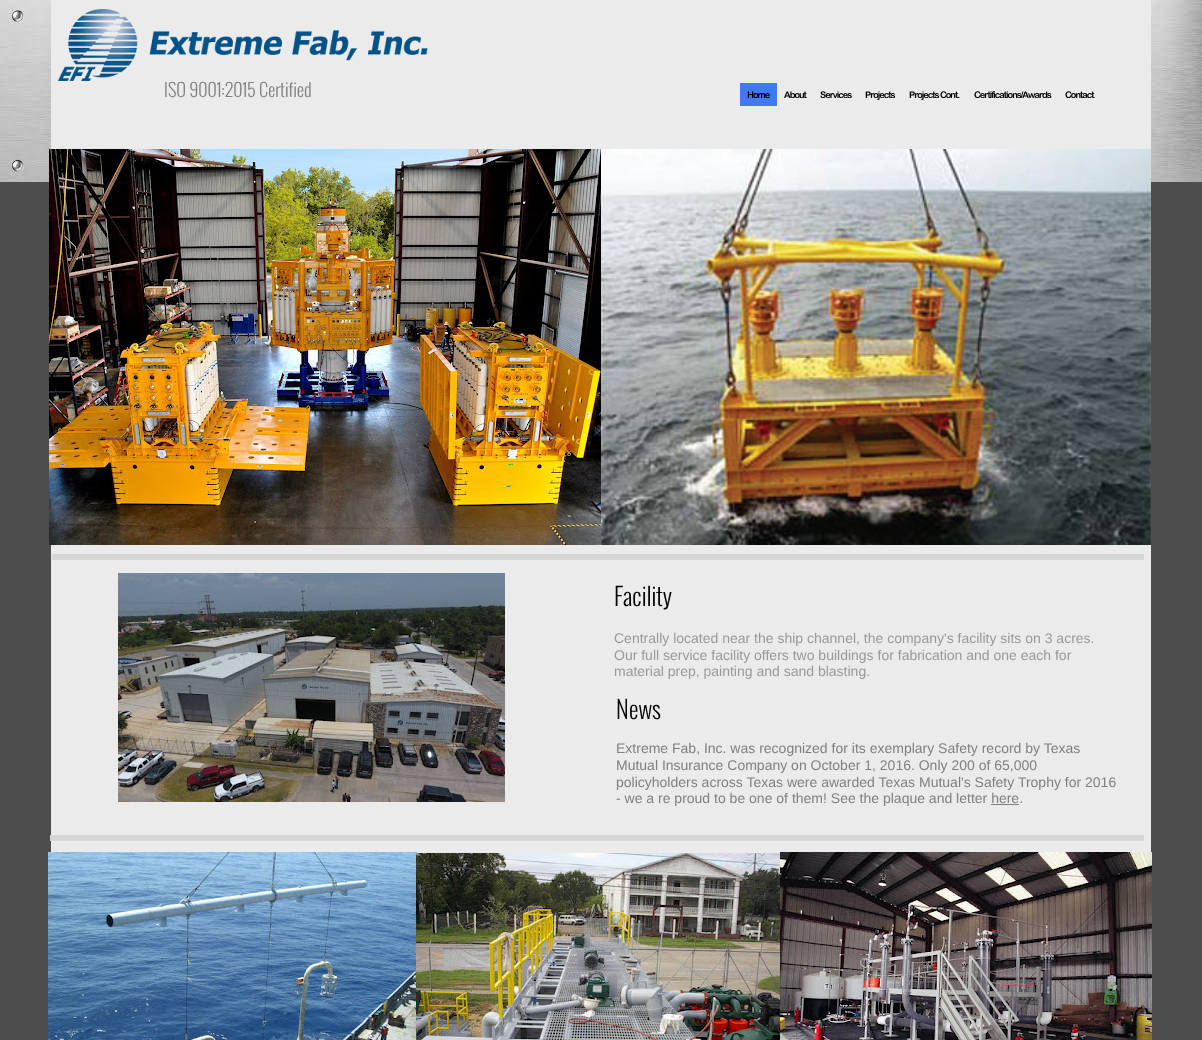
<svg xmlns="http://www.w3.org/2000/svg" width="1202" height="1040">
<rect width="100%" height="100%" fill="#4d4d4d"/>
<image x="0" y="0" width="1202" height="182" href="media/1.png"/>
<rect x="51" width="1100" height="853" fill="#ebebeb"/>
<image x="58" y="9" width="370" height="72" href="media/2.png"/>
<text x="164" y="97" style="font-family:Oswald;font-size:18px;font-weight:300;fill:#808080">ISO 9001:2015 Certified</text>
<rect x="740" y="83" width="37" height="23" fill="#3f7af2"/>
<text x="747" y="98" style="font-family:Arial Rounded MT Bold;font-size:9.25px;font-weight:bold;letter-spacing:-1px;fill:#000">Home</text>
<text x="784" y="98" style="font-family:Arial Rounded MT Bold;font-size:9.25px;font-weight:bold;letter-spacing:-1px;fill:#000">About</text>
<text x="820" y="98" style="font-family:Arial Rounded MT Bold;font-size:9.25px;font-weight:bold;letter-spacing:-1px;fill:#000">Services</text>
<text x="865" y="98" style="font-family:Arial Rounded MT Bold;font-size:9.25px;font-weight:bold;letter-spacing:-1px;fill:#000">Projects</text>
<text x="909" y="98" style="font-family:Arial Rounded MT Bold;font-size:9.25px;font-weight:bold;letter-spacing:-1px;fill:#000">Projects Cont.</text>
<text x="974" y="98" style="font-family:Arial Rounded MT Bold;font-size:9.25px;font-weight:bold;letter-spacing:-1px;fill:#000">Certifications/Awards</text>
<text x="1065" y="98" style="font-family:Arial Rounded MT Bold;font-size:9.25px;font-weight:bold;letter-spacing:-1px;fill:#000">Contact</text>
<image x="49" y="149" width="552" height="396" href="media/3.png"/>
<text x="317" y="178" style="font-family:Liberation Sans;font-size:11px;fill:#9ea975">1/4</text>
<image x="601" y="149" width="550" height="396" href="media/4.png"/>
<rect x="52" y="554" width="1092" height="6" fill="#d6d6d6"/>
<image x="118" y="573" width="387" height="229" href="media/5.png"/>
<text x="614" y="606" style="font-family:Oswald;font-size:24px;font-weight:300;fill:#000">Facility</text>
<text x="614" y="643" style="font-family:Liberation Sans;font-size:14px;fill:#999">Centrally located near the ship channel, the company's facility sits on 3 acres.</text>
<text x="614" y="660" style="font-family:Liberation Sans;font-size:14px;fill:#999">Our full service facility offers two buildings for fabrication and one each for</text>
<text x="614" y="676" style="font-family:Liberation Sans;font-size:14px;fill:#999">material prep, painting and sand blasting.</text>
<text x="616" y="719" style="font-family:Oswald;font-size:24px;font-weight:300;fill:#000">News</text>
<text x="616" y="753" style="font-family:Liberation Sans;font-size:14px;fill:#808080">Extreme Fab, Inc. was recognized for its exemplary Safety record by Texas</text>
<text x="616" y="770" style="font-family:Liberation Sans;font-size:14px;fill:#808080">Mutual Insurance Company on October 1, 2016. Only 200 of 65,000</text>
<text x="616" y="787" style="font-family:Liberation Sans;font-size:14px;fill:#808080">policyholders across Texas were awarded Texas Mutual's Safety Trophy for 2016</text>
<text x="616" y="803" style="font-family:Liberation Sans;font-size:14px;fill:#808080">- we a re proud to be one of them! See the plaque and letter here.</text>
<rect x="991" y="804" width="28" height="1" fill="#808080"/>
<rect x="50" y="835" width="1094" height="6" fill="#d6d6d6"/>
<image x="48" y="852" width="369" height="188" href="media/6.png"/>
<image x="416" y="853" width="364" height="187" href="media/7.png"/>
<text x="591" y="882" style="font-family:Liberation Sans;font-size:11px;fill:#c1c3c4">1/3</text>
<image x="780" y="852" width="372" height="188" href="media/8.png"/>
</svg>
